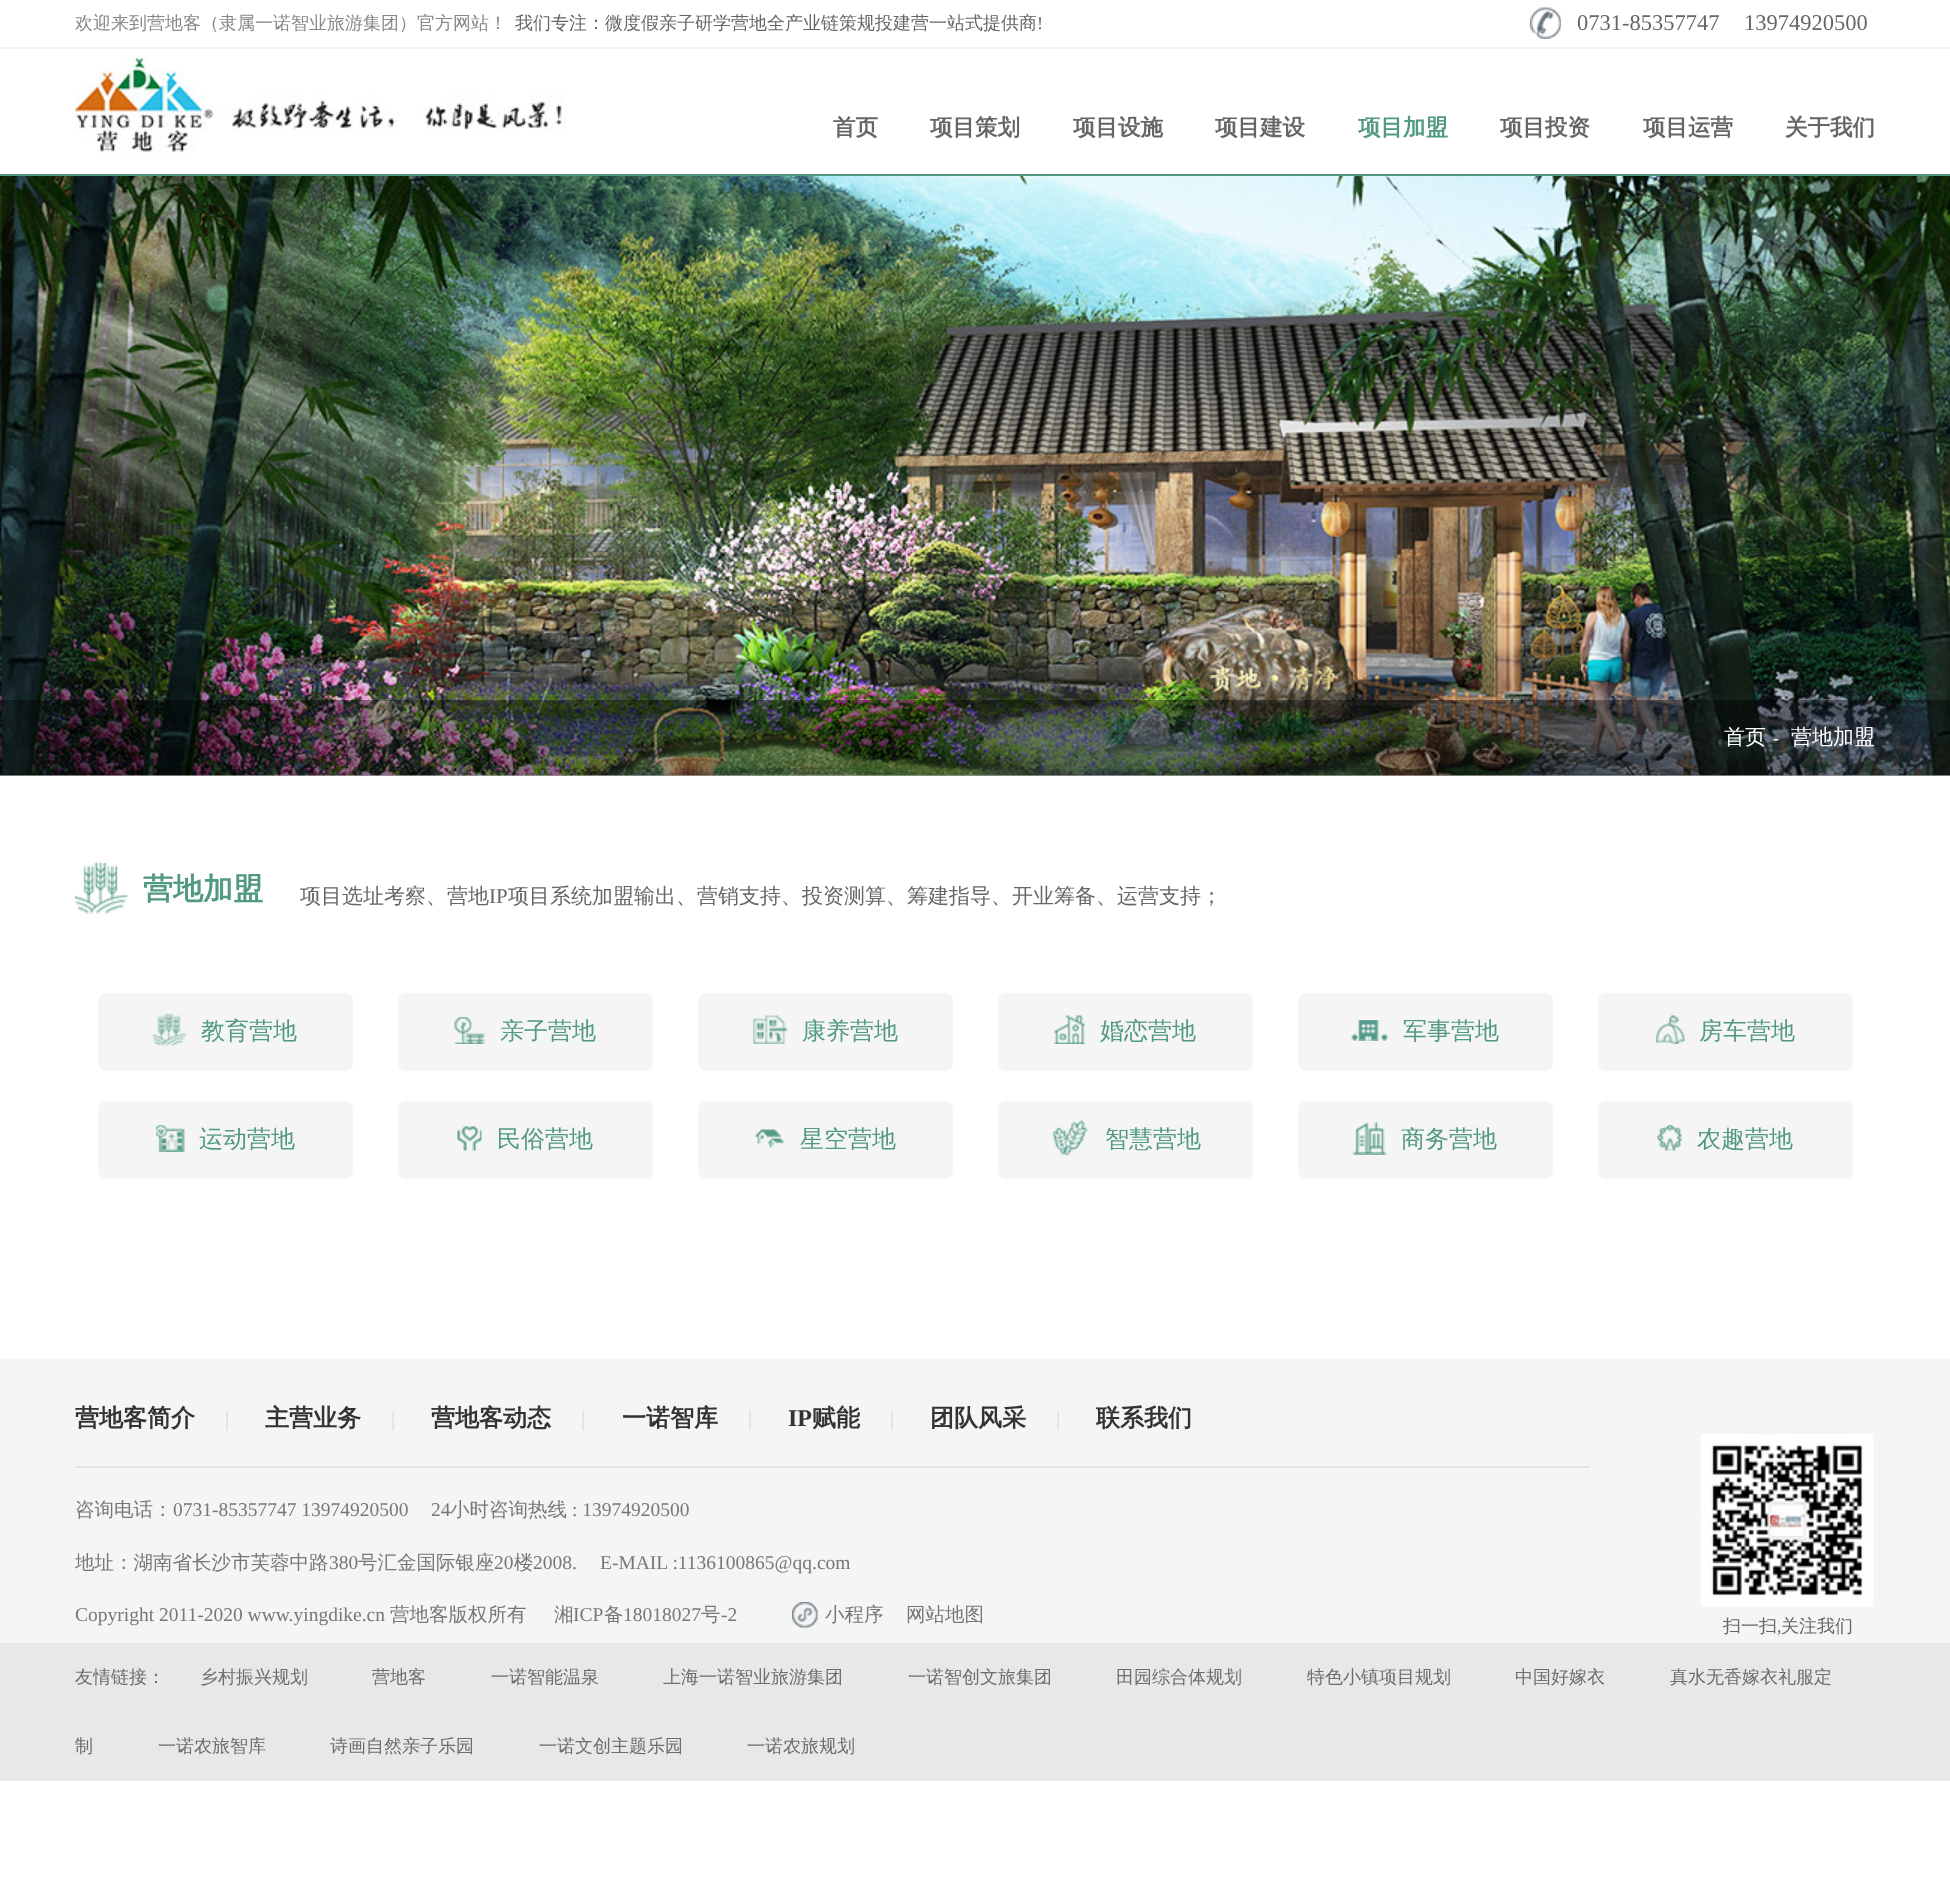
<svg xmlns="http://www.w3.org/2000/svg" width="1950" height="1903">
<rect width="100%" height="100%" fill="#fff"/>
<rect y="47" width="1950" height="2" fill="#f1f1f1"/>
<text x="75" y="29" style="font-family:WenQuanYi Zen Hei;font-size:18px;font-weight:500;fill:#888">欢迎来到营地客（隶属一诺智业旅游集团）官方网站！</text>
<text x="515" y="29" style="font-family:WenQuanYi Zen Hei;font-size:18px;font-weight:500;fill:#666">我们专注：微度假亲子研学营地全产业链策规投建营一站式提供商</text>
<text x="1037" y="29" style="font-family:Liberation Serif;font-size:18px;fill:#666">!</text>
<image x="1530" y="7" width="31" height="32" href="media/1.png"/>
<text x="1577" y="30" style="font-family:Liberation Serif;font-size:22.5px;fill:#666">0731-85357747</text>
<text x="1744" y="30" style="font-family:Liberation Serif;font-size:22.5px;fill:#666">13974920500</text>
<rect y="174" width="1950" height="2" fill="#529981"/>
<image x="75" y="58" width="492" height="96" href="media/2.png"/>
<text x="833" y="135" style="font-family:WenQuanYi Zen Hei;font-size:22.5px;font-weight:bold;fill:#666">首页</text>
<text x="930" y="135" style="font-family:WenQuanYi Zen Hei;font-size:22.5px;font-weight:bold;fill:#666">项目策划</text>
<text x="1073" y="135" style="font-family:WenQuanYi Zen Hei;font-size:22.5px;font-weight:bold;fill:#666">项目设施</text>
<text x="1215" y="135" style="font-family:WenQuanYi Zen Hei;font-size:22.5px;font-weight:bold;fill:#666">项目建设</text>
<text x="1358" y="135" style="font-family:WenQuanYi Zen Hei;font-size:22.5px;font-weight:bold;fill:#529981">项目加盟</text>
<text x="1500" y="135" style="font-family:WenQuanYi Zen Hei;font-size:22.5px;font-weight:bold;fill:#666">项目投资</text>
<text x="1643" y="135" style="font-family:WenQuanYi Zen Hei;font-size:22.5px;font-weight:bold;fill:#666">项目运营</text>
<text x="1785" y="135" style="font-family:WenQuanYi Zen Hei;font-size:22.5px;font-weight:bold;fill:#666">关于我们</text>
<image x="0" y="176" width="1950" height="600" href="media/3.png"/>
<rect y="700" width="1950" height="76" fill="#00000066"/>
<text x="1724" y="744" style="font-family:WenQuanYi Zen Hei;font-size:21px;font-weight:500;fill:#fff">首页</text>
<text x="1773" y="744" style="font-family:Liberation Serif;font-size:18px;fill:#fff">-</text>
<text x="1791" y="744" style="font-family:WenQuanYi Zen Hei;font-size:21px;font-weight:500;fill:#fff">营地加盟</text>
<image x="75" y="862" width="53" height="52" href="media/4.png"/>
<text x="143" y="899" style="font-family:WenQuanYi Zen Hei;font-size:30px;font-weight:bold;fill:#529981">营地加盟</text>
<text x="300" y="903" style="font-family:WenQuanYi Zen Hei;font-size:21px;font-weight:500;fill:#666">项目选址考察、营地</text>
<text x="489" y="903" style="font-family:Liberation Serif;font-size:21px;fill:#666">IP</text>
<text x="508" y="903" style="font-family:WenQuanYi Zen Hei;font-size:21px;font-weight:500;fill:#666">项目系统加盟输出、营销支持、投资测算、筹建指导、开业筹备、运营支持；</text>
<rect x="98" y="993" width="255" height="78" rx="8" fill="#f5f5f5"/>
<image x="153" y="1014" width="33" height="32" href="media/5.png"/>
<text x="201" y="1039" style="font-family:WenQuanYi Zen Hei;font-size:24px;font-weight:500;fill:#529981">教育营地</text>
<rect x="398" y="993" width="255" height="78" rx="8" fill="#f5f5f5"/>
<image x="454" y="1017" width="31" height="27" href="media/6.png"/>
<text x="500" y="1039" style="font-family:WenQuanYi Zen Hei;font-size:24px;font-weight:500;fill:#529981">亲子营地</text>
<rect x="698" y="993" width="255" height="78" rx="8" fill="#f5f5f5"/>
<image x="753" y="1015" width="35" height="29" href="media/7.png"/>
<text x="802" y="1039" style="font-family:WenQuanYi Zen Hei;font-size:24px;font-weight:500;fill:#529981">康养营地</text>
<rect x="998" y="993" width="255" height="78" rx="8" fill="#f5f5f5"/>
<image x="1054" y="1015" width="31" height="29" href="media/8.png"/>
<text x="1100" y="1039" style="font-family:WenQuanYi Zen Hei;font-size:24px;font-weight:500;fill:#529981">婚恋营地</text>
<rect x="1298" y="993" width="255" height="78" rx="8" fill="#f5f5f5"/>
<image x="1351" y="1020" width="37" height="21" href="media/9.png"/>
<text x="1403" y="1039" style="font-family:WenQuanYi Zen Hei;font-size:24px;font-weight:500;fill:#529981">军事营地</text>
<rect x="1598" y="993" width="255" height="78" rx="8" fill="#f5f5f5"/>
<image x="1656" y="1015" width="29" height="29" href="media/10.png"/>
<text x="1699" y="1039" style="font-family:WenQuanYi Zen Hei;font-size:24px;font-weight:500;fill:#529981">房车营地</text>
<rect x="98" y="1101" width="255" height="78" rx="8" fill="#f5f5f5"/>
<image x="156" y="1125" width="29" height="27" href="media/11.png"/>
<text x="199" y="1147" style="font-family:WenQuanYi Zen Hei;font-size:24px;font-weight:500;fill:#529981">运动营地</text>
<rect x="398" y="1101" width="255" height="78" rx="8" fill="#f5f5f5"/>
<image x="457" y="1126" width="25" height="25" href="media/12.png"/>
<text x="497" y="1147" style="font-family:WenQuanYi Zen Hei;font-size:24px;font-weight:500;fill:#529981">民俗营地</text>
<rect x="698" y="1101" width="255" height="78" rx="8" fill="#f5f5f5"/>
<image x="754" y="1129" width="31" height="19" href="media/13.png"/>
<text x="800" y="1147" style="font-family:WenQuanYi Zen Hei;font-size:24px;font-weight:500;fill:#529981">星空营地</text>
<rect x="998" y="1101" width="255" height="78" rx="8" fill="#f5f5f5"/>
<image x="1052" y="1120" width="36" height="36" href="media/14.png"/>
<text x="1105" y="1147" style="font-family:WenQuanYi Zen Hei;font-size:24px;font-weight:500;fill:#529981">智慧营地</text>
<rect x="1298" y="1101" width="255" height="78" rx="8" fill="#f5f5f5"/>
<image x="1353" y="1122" width="33" height="33" href="media/15.png"/>
<text x="1401" y="1147" style="font-family:WenQuanYi Zen Hei;font-size:24px;font-weight:500;fill:#529981">商务营地</text>
<rect x="1598" y="1101" width="255" height="78" rx="8" fill="#f5f5f5"/>
<image x="1657" y="1125" width="25" height="26" href="media/16.png"/>
<text x="1697" y="1147" style="font-family:WenQuanYi Zen Hei;font-size:24px;font-weight:500;fill:#529981">农趣营地</text>
<rect y="1359" width="1950" height="284" fill="#f5f5f5"/>
<rect x="75" y="1466" width="1515" height="2" fill="#e4e4e4"/>
<text x="75" y="1426" style="font-family:WenQuanYi Zen Hei;font-size:24px;font-weight:bold;fill:#333">营地客简介</text>
<text x="225" y="1426" style="font-family:Liberation Serif;font-size:21px;fill:#d7d7d7">|</text>
<text x="265" y="1426" style="font-family:WenQuanYi Zen Hei;font-size:24px;font-weight:bold;fill:#333">主营业务</text>
<text x="391" y="1426" style="font-family:Liberation Serif;font-size:21px;fill:#d7d7d7">|</text>
<text x="431" y="1426" style="font-family:WenQuanYi Zen Hei;font-size:24px;font-weight:bold;fill:#333">营地客动态</text>
<text x="581" y="1426" style="font-family:Liberation Serif;font-size:21px;fill:#d7d7d7">|</text>
<text x="622" y="1426" style="font-family:WenQuanYi Zen Hei;font-size:24px;font-weight:bold;fill:#333">一诺智库</text>
<text x="748" y="1426" style="font-family:Liberation Serif;font-size:21px;fill:#d7d7d7">|</text>
<text x="788" y="1426" style="font-family:Liberation Serif;font-size:24px;font-weight:bold;fill:#333">IP</text>
<text x="812" y="1426" style="font-family:WenQuanYi Zen Hei;font-size:24px;font-weight:bold;fill:#333">赋能</text>
<text x="890" y="1426" style="font-family:Liberation Serif;font-size:21px;fill:#d7d7d7">|</text>
<text x="930" y="1426" style="font-family:WenQuanYi Zen Hei;font-size:24px;font-weight:bold;fill:#333">团队风采</text>
<text x="1056" y="1426" style="font-family:Liberation Serif;font-size:21px;fill:#d7d7d7">|</text>
<text x="1096" y="1426" style="font-family:WenQuanYi Zen Hei;font-size:24px;font-weight:bold;fill:#333">联系我们</text>
<text x="75" y="1516" style="font-family:WenQuanYi Zen Hei;font-size:19.5px;font-weight:500;fill:#777">咨询电话：</text>
<text x="173" y="1516" style="font-family:Liberation Serif;font-size:19.5px;fill:#777">0731-85357747 13974920500</text>
<text x="431" y="1516" style="font-family:Liberation Serif;font-size:19.5px;fill:#777">24</text>
<text x="450" y="1516" style="font-family:WenQuanYi Zen Hei;font-size:19.5px;font-weight:500;fill:#777">小时咨询热线</text>
<text x="572" y="1516" style="font-family:Liberation Serif;font-size:19.5px;fill:#777">: 13974920500</text>
<text x="75" y="1569" style="font-family:WenQuanYi Zen Hei;font-size:19.5px;font-weight:500;fill:#777">地址：湖南省长沙市芙蓉中路</text>
<text x="329" y="1569" style="font-family:Liberation Serif;font-size:19.5px;fill:#777">380</text>
<text x="358" y="1569" style="font-family:WenQuanYi Zen Hei;font-size:19.5px;font-weight:500;fill:#777">号汇金国际银座</text>
<text x="494" y="1569" style="font-family:Liberation Serif;font-size:19.5px;fill:#777">20</text>
<text x="514" y="1569" style="font-family:WenQuanYi Zen Hei;font-size:19.5px;font-weight:500;fill:#777">楼</text>
<text x="533" y="1569" style="font-family:Liberation Serif;font-size:19.5px;fill:#777">2008.</text>
<text x="600" y="1569" style="font-family:Liberation Serif;font-size:19.5px;fill:#777">E-MAIL :1136100865@qq.com</text>
<text x="75" y="1621" style="font-family:Liberation Serif;font-size:19.5px;fill:#777">Copyright 2011-2020 www.yingdike.cn</text>
<text x="390" y="1621" style="font-family:WenQuanYi Zen Hei;font-size:19.5px;font-weight:500;fill:#777">营地客版权所有</text>
<text x="554" y="1621" style="font-family:WenQuanYi Zen Hei;font-size:19.5px;font-weight:500;fill:#777">湘</text>
<text x="573" y="1621" style="font-family:Liberation Serif;font-size:19.5px;fill:#777">ICP</text>
<text x="604" y="1621" style="font-family:WenQuanYi Zen Hei;font-size:19.5px;font-weight:500;fill:#777">备</text>
<text x="623" y="1621" style="font-family:Liberation Serif;font-size:19.5px;fill:#777">18018027</text>
<text x="701" y="1621" style="font-family:WenQuanYi Zen Hei;font-size:19.5px;font-weight:500;fill:#777">号</text>
<text x="721" y="1621" style="font-family:Liberation Serif;font-size:19.5px;fill:#777">-2</text>
<image x="792" y="1602" width="26" height="26" href="media/17.png"/>
<text x="825" y="1621" style="font-family:WenQuanYi Zen Hei;font-size:19.5px;font-weight:500;fill:#777">小程序</text>
<text x="906" y="1621" style="font-family:WenQuanYi Zen Hei;font-size:19.5px;font-weight:500;fill:#777">网站地图</text>
<image x="1701" y="1434" width="173" height="173" href="media/18.png"/>
<text x="1723" y="1632" style="font-family:WenQuanYi Zen Hei;font-size:18px;font-weight:500;fill:#666">扫一扫</text>
<text x="1777" y="1632" style="font-family:Liberation Serif;font-size:18px;fill:#666">,</text>
<text x="1781" y="1632" style="font-family:WenQuanYi Zen Hei;font-size:18px;font-weight:500;fill:#666">关注我们</text>
<rect y="1643" width="1950" height="138" fill="#e8e8e8"/>
<text x="75" y="1683" style="font-family:WenQuanYi Zen Hei;font-size:18px;font-weight:500;fill:#6d6d6d">友情链接：</text>
<text x="200" y="1683" style="font-family:WenQuanYi Zen Hei;font-size:18px;font-weight:500;fill:#6d6d6d">乡村振兴规划</text>
<text x="372" y="1683" style="font-family:WenQuanYi Zen Hei;font-size:18px;font-weight:500;fill:#6d6d6d">营地客</text>
<text x="491" y="1683" style="font-family:WenQuanYi Zen Hei;font-size:18px;font-weight:500;fill:#6d6d6d">一诺智能温泉</text>
<text x="663" y="1683" style="font-family:WenQuanYi Zen Hei;font-size:18px;font-weight:500;fill:#6d6d6d">上海一诺智业旅游集团</text>
<text x="908" y="1683" style="font-family:WenQuanYi Zen Hei;font-size:18px;font-weight:500;fill:#6d6d6d">一诺智创文旅集团</text>
<text x="1116" y="1683" style="font-family:WenQuanYi Zen Hei;font-size:18px;font-weight:500;fill:#6d6d6d">田园综合体规划</text>
<text x="1307" y="1683" style="font-family:WenQuanYi Zen Hei;font-size:18px;font-weight:500;fill:#6d6d6d">特色小镇项目规划</text>
<text x="1515" y="1683" style="font-family:WenQuanYi Zen Hei;font-size:18px;font-weight:500;fill:#6d6d6d">中国好嫁衣</text>
<text x="1670" y="1683" style="font-family:WenQuanYi Zen Hei;font-size:18px;font-weight:500;fill:#6d6d6d">真水无香嫁衣礼服定</text>
<text x="75" y="1752" style="font-family:WenQuanYi Zen Hei;font-size:18px;font-weight:500;fill:#6d6d6d">制</text>
<text x="158" y="1752" style="font-family:WenQuanYi Zen Hei;font-size:18px;font-weight:500;fill:#6d6d6d">一诺农旅智库</text>
<text x="330" y="1752" style="font-family:WenQuanYi Zen Hei;font-size:18px;font-weight:500;fill:#6d6d6d">诗画自然亲子乐园</text>
<text x="539" y="1752" style="font-family:WenQuanYi Zen Hei;font-size:18px;font-weight:500;fill:#6d6d6d">一诺文创主题乐园</text>
<text x="747" y="1752" style="font-family:WenQuanYi Zen Hei;font-size:18px;font-weight:500;fill:#6d6d6d">一诺农旅规划</text>
</svg>
